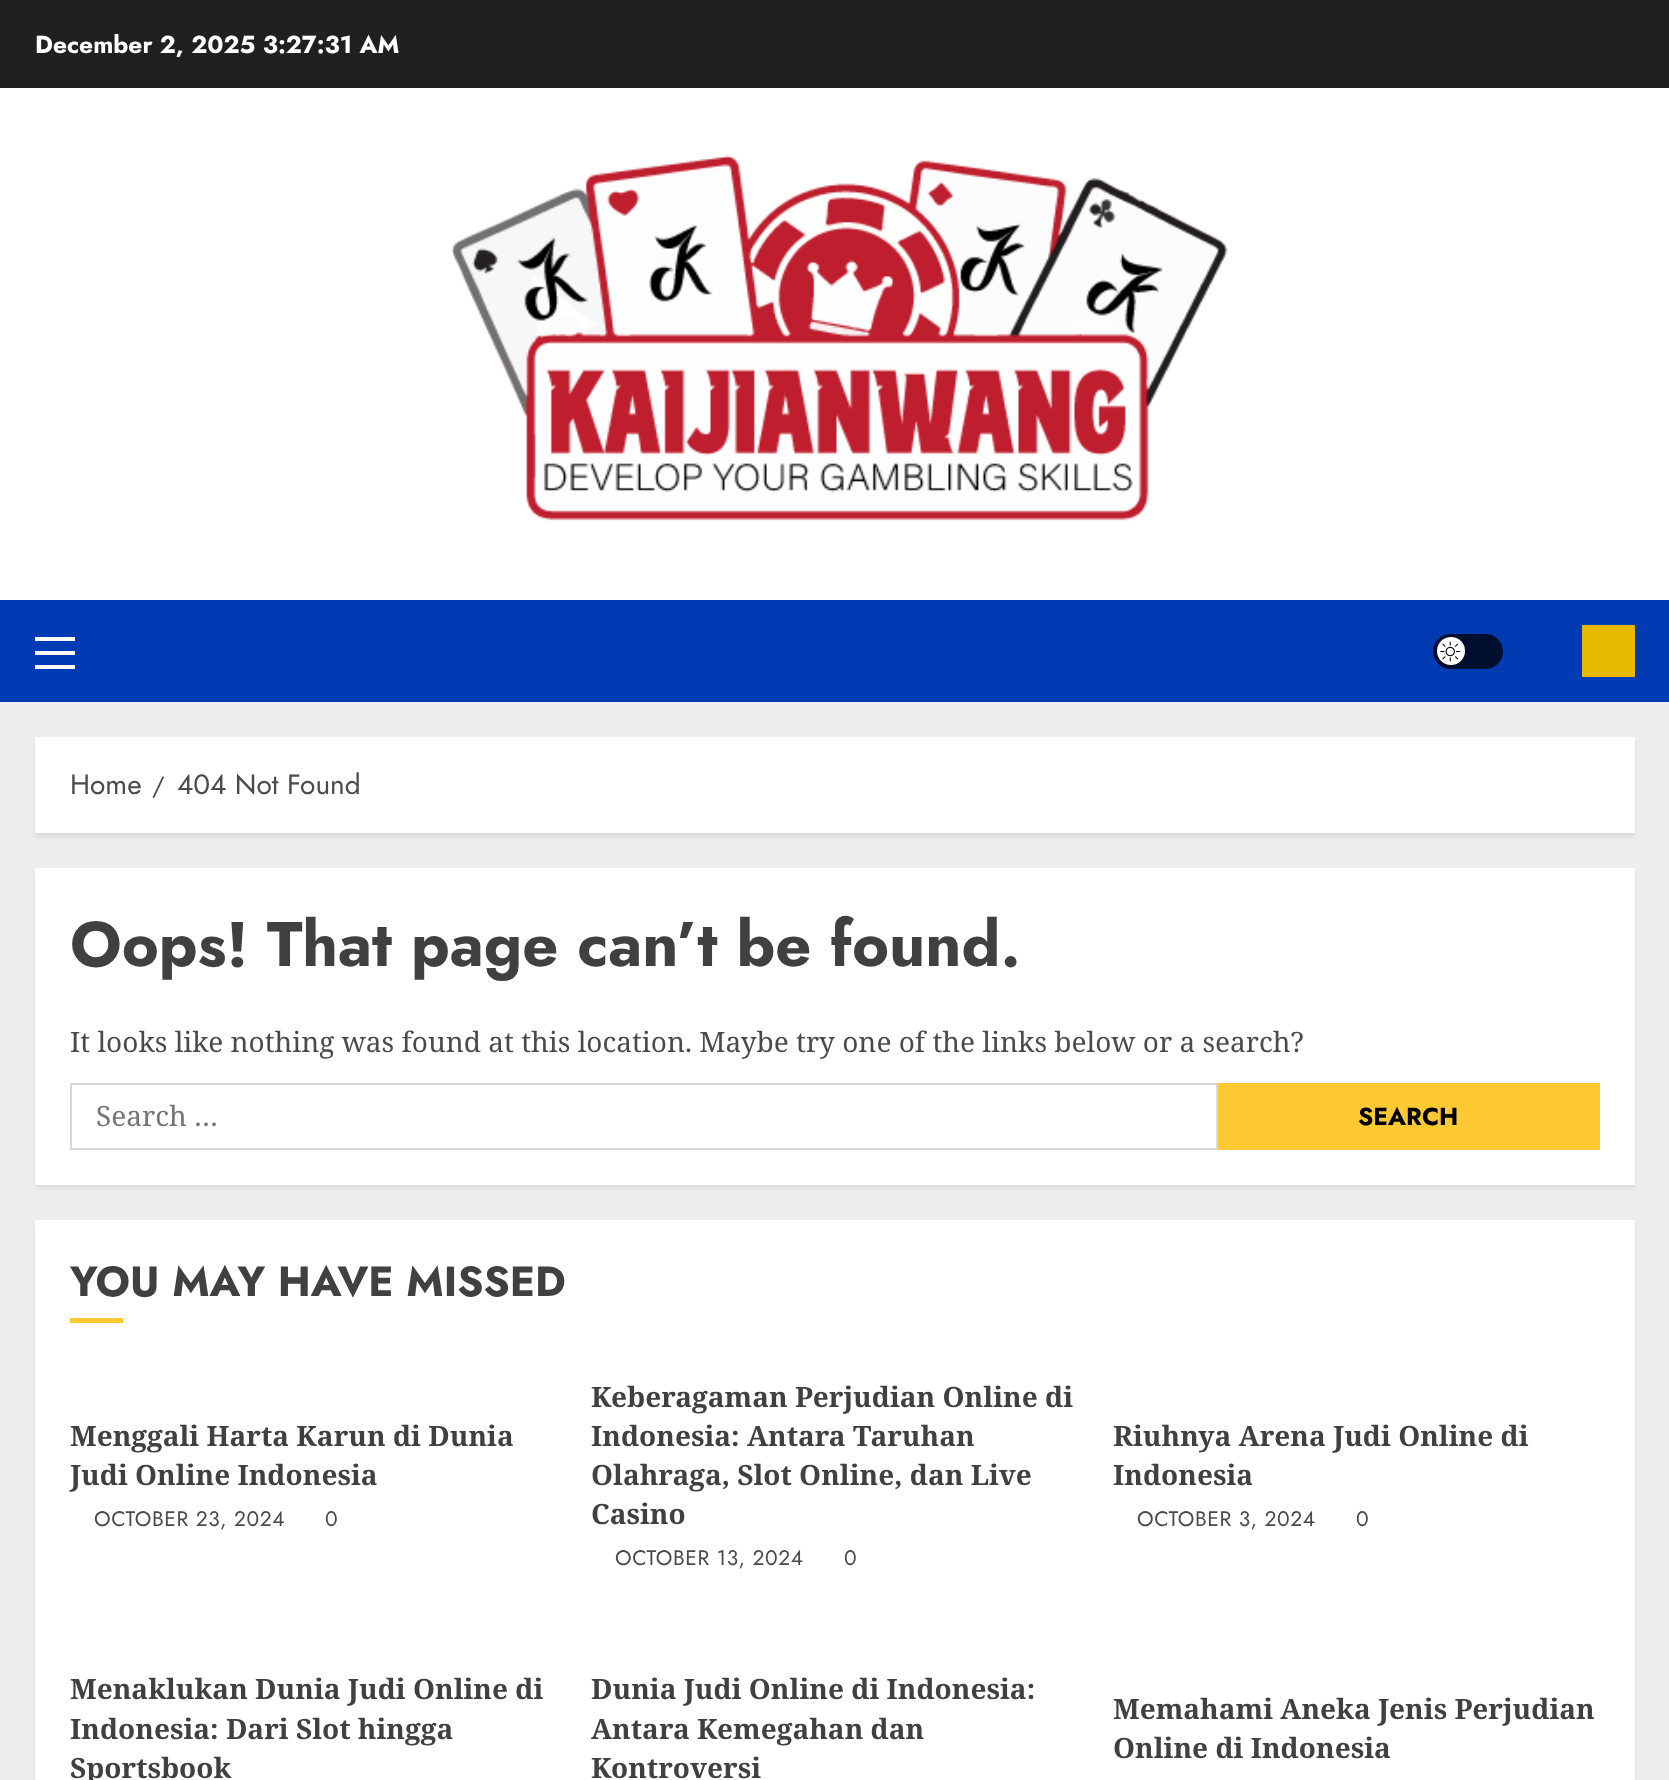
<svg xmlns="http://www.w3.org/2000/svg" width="1669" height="1780">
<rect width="100%" height="100%" fill="#eee"/>
<rect width="1669" height="88" fill="#202020"/>
<text x="35" y="53" style="font-family:Jost;font-size:24.5px;font-weight:bold;fill:#fff">December 2, 2025 3:27:31 AM</text>
<rect y="88" width="1669" height="512" fill="#fff"/>
<image x="451" y="155" width="777" height="366" href="media/1.png"/>
<rect y="600" width="1669" height="102" fill="#003bb3"/>
<rect x="35" y="651" width="40" height="4" fill="#fff"/>
<rect x="35" y="637" width="40" height="4" fill="#fff"/>
<rect x="35" y="665" width="40" height="4" fill="#fff"/>
<rect x="1433" y="634" width="70" height="35" rx="17.5" fill="#000f2d"/>
<circle cx="1451" cy="651" r="14" fill="#fff"/>
<image x="1440" y="641" width="21" height="21" href="media/2.png"/>
<rect x="1582" y="625" width="53" height="52" fill="#e6b800"/>
<rect x="35" y="740" width="1600" height="97" fill="#00000014" filter="blur(2px)"/>
<rect x="35" y="737" width="1600" height="96" fill="#fff"/>
<text x="70" y="794" style="font-family:Jost;font-size:28px;fill:#4a4a4a">Home</text>
<text x="152" y="794" style="font-family:Jost;font-size:24.5px;fill:#4a4a4a">/</text>
<text x="177" y="794" style="font-family:Jost;font-size:28px;fill:#4a4a4a">404 Not Found</text>
<rect x="35" y="872" width="1600" height="316" fill="#00000014" filter="blur(2px)"/>
<rect x="35" y="868" width="1600" height="317" fill="#fff"/>
<text x="70" y="966" style="font-family:Jost;font-size:63px;font-weight:bold;fill:#404040">Oops! That page can’t be found.</text>
<text x="70" y="1052" style="font-family:Noto Serif;font-size:28px;fill:#4a4a4a">It looks like nothing was found at this location. Maybe try one of the links below or a search?</text>
<rect x="71" y="1084" width="1146" height="65" fill="none" stroke="#d9d9d9" stroke-width="2"/>
<text x="96" y="1126" style="font-family:Noto Serif;font-size:28px;fill:#757575">Search …</text>
<rect x="1218" y="1083" width="382" height="67" fill="#ffc934"/>
<text x="1358" y="1125" style="font-family:Jost;font-size:24.5px;font-weight:bold;fill:#000">SEARCH</text>
<rect x="35" y="1223" width="1600" height="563" fill="#00000014" filter="blur(2px)"/>
<rect x="35" y="1220" width="1600" height="560" fill="#fff"/>
<text x="70" y="1296" style="font-family:Jost;font-size:42px;font-weight:bold;fill:#404040">YOU MAY HAVE MISSED</text>
<rect x="70" y="1318" width="53" height="5" fill="#ffc934"/>
<text x="70" y="1446" style="font-family:Noto Serif;font-size:28px;font-weight:bold;fill:#404040">Menggali Harta Karun di Dunia</text>
<text x="70" y="1485" style="font-family:Noto Serif;font-size:28px;font-weight:bold;fill:#404040">Judi Online Indonesia</text>
<text x="94" y="1526" style="font-family:Jost;font-size:21px;letter-spacing:0.6px;fill:#4a4a4a">OCTOBER 23, 2024</text>
<text x="325" y="1526" style="font-family:Jost;font-size:21px;letter-spacing:0.6px;fill:#4a4a4a">0</text>
<text x="591" y="1407" style="font-family:Noto Serif;font-size:28px;font-weight:bold;fill:#404040">Keberagaman Perjudian Online di</text>
<text x="591" y="1446" style="font-family:Noto Serif;font-size:28px;font-weight:bold;fill:#404040">Indonesia: Antara Taruhan</text>
<text x="591" y="1485" style="font-family:Noto Serif;font-size:28px;font-weight:bold;fill:#404040">Olahraga, Slot Online, dan Live</text>
<text x="591" y="1524" style="font-family:Noto Serif;font-size:28px;font-weight:bold;fill:#404040">Casino</text>
<text x="615" y="1565" style="font-family:Jost;font-size:21px;letter-spacing:0.6px;fill:#4a4a4a">OCTOBER 13, 2024</text>
<text x="844" y="1565" style="font-family:Jost;font-size:21px;letter-spacing:0.6px;fill:#4a4a4a">0</text>
<text x="1113" y="1446" style="font-family:Noto Serif;font-size:28px;font-weight:bold;fill:#404040">Riuhnya Arena Judi Online di</text>
<text x="1113" y="1485" style="font-family:Noto Serif;font-size:28px;font-weight:bold;fill:#404040">Indonesia</text>
<text x="1137" y="1526" style="font-family:Jost;font-size:21px;letter-spacing:0.6px;fill:#4a4a4a">OCTOBER 3, 2024</text>
<text x="1356" y="1526" style="font-family:Jost;font-size:21px;letter-spacing:0.6px;fill:#4a4a4a">0</text>
<text x="70" y="1699" style="font-family:Noto Serif;font-size:28px;font-weight:bold;fill:#404040">Menaklukan Dunia Judi Online di</text>
<text x="70" y="1739" style="font-family:Noto Serif;font-size:28px;font-weight:bold;fill:#404040">Indonesia: Dari Slot hingga</text>
<text x="70" y="1778" style="font-family:Noto Serif;font-size:28px;font-weight:bold;fill:#404040">Sportsbook</text>
<text x="591" y="1699" style="font-family:Noto Serif;font-size:28px;font-weight:bold;fill:#404040">Dunia Judi Online di Indonesia:</text>
<text x="591" y="1739" style="font-family:Noto Serif;font-size:28px;font-weight:bold;fill:#404040">Antara Kemegahan dan</text>
<text x="591" y="1778" style="font-family:Noto Serif;font-size:28px;font-weight:bold;fill:#404040">Kontroversi</text>
<text x="1113" y="1719" style="font-family:Noto Serif;font-size:28px;font-weight:bold;fill:#404040">Memahami Aneka Jenis Perjudian</text>
<text x="1113" y="1758" style="font-family:Noto Serif;font-size:28px;font-weight:bold;fill:#404040">Online di Indonesia</text>
</svg>
